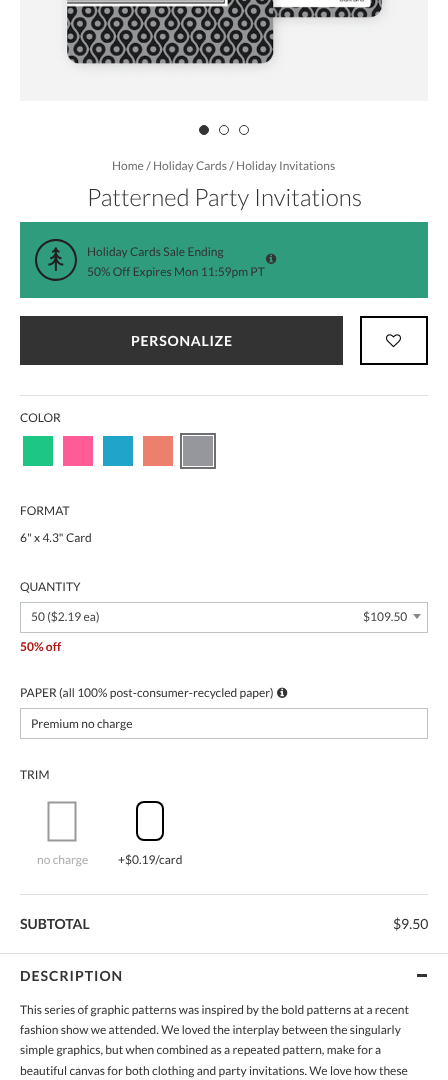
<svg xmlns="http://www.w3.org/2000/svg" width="448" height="1080">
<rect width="100%" height="100%" fill="#fff"/>
<image x="20" y="0" width="408" height="101" href="media/1.png"/>
<circle cx="204" cy="130" r="4.5" fill="#333" stroke="#333"/>
<circle cx="224" cy="130" r="4.5" fill="none" stroke="#333"/>
<circle cx="244" cy="130" r="4.5" fill="none" stroke="#333"/>
<text x="112" y="170" style="font-family:Lato;font-size:12px;fill:#6f6f6f">Home / Holiday Cards / Holiday Invitations</text>
<text x="87" y="206" style="font-family:Lato;font-size:24px;font-weight:300;fill:#333">Patterned Party Invitations</text>
<rect x="20" y="222" width="408" height="76" fill="#2f9c7e"/>
<image x="35" y="239" width="42" height="42" href="media/2.png"/>
<text x="87" y="256" style="font-family:Lato;font-size:12px;fill:#333">Holiday Cards Sale Ending</text>
<text x="87" y="276" style="font-family:Lato;font-size:12px;fill:#333">50% Off Expires Mon 11:59pm PT</text>
<image x="266" y="253" width="11" height="11" href="media/3.png"/>
<rect x="20" y="316" width="323" height="49" fill="#333"/>
<text x="131" y="346" style="font-family:Lato;font-size:14px;font-weight:bold;letter-spacing:0.75px;fill:#fff">PERSONALIZE</text>
<rect x="361" y="317" width="66" height="47" fill="none" stroke="#000" stroke-width="2"/>
<image x="386" y="334" width="15" height="14" href="media/4.png"/>
<rect x="20" y="395" width="408" height="1" fill="#e0e0e0"/>
<text x="20" y="422" style="font-family:Lato;font-size:12px;fill:#333">COLOR</text>
<rect x="23" y="436" width="30" height="30" fill="#1dc685"/>
<rect x="63" y="436" width="30" height="30" fill="#ff5b97"/>
<rect x="103" y="436" width="30" height="30" fill="#20a5c8"/>
<rect x="143" y="436" width="30" height="30" fill="#ed806c"/>
<rect x="181" y="434" width="34" height="34" fill="none" stroke="#6f6f6f" stroke-width="2"/>
<rect x="183" y="436" width="30" height="30" fill="#96979c"/>
<text x="20" y="515" style="font-family:Lato;font-size:12px;fill:#333">FORMAT</text>
<text x="20" y="542" style="font-family:Lato;font-size:12px;fill:#333">6" x 4.3" Card</text>
<text x="20" y="591" style="font-family:Lato;font-size:12px;fill:#333">QUANTITY</text>
<rect x="20.5" y="602.5" width="407" height="30" fill="none" stroke="#bdc3c7"/>
<text x="31" y="621" style="font-family:Lato;font-size:12px;fill:#444">50 ($2.19 ea)</text>
<text x="363" y="621" style="font-family:Lato;font-size:12px;fill:#444">$109.50</text>
<path d="M413 614h8l-4 5z" fill="#888"/>
<text x="20" y="651" style="font-family:Lato;font-size:12px;font-weight:bold;fill:#ad1414">50% off</text>
<text x="20" y="697" style="font-family:Lato;font-size:12px;fill:#333">PAPER (all 100% post-consumer-recycled paper)</text>
<image x="277" y="687" width="11" height="11" href="media/5.png"/>
<rect x="20.5" y="708.5" width="407" height="30" fill="none" stroke="#bdc3c7"/>
<text x="31" y="728" style="font-family:Lato;font-size:12px;fill:#333">Premium no charge</text>
<text x="20" y="779" style="font-family:Lato;font-size:12px;fill:#333">TRIM</text>
<path d="M75.5 840.5h-27v-38h27z" fill="none" stroke="#999" stroke-width="2"/>
<text x="37" y="864" style="font-family:Lato;font-size:12px;fill:#adadad">no charge</text>
<image x="136" y="801" width="28" height="40" href="media/6.png"/>
<text x="118" y="864" style="font-family:Lato;font-size:12px;fill:#333">+$0.19/card</text>
<rect x="20" y="894" width="408" height="1" fill="#e0e0e0"/>
<text x="20" y="929" style="font-family:Lato;font-size:14px;font-weight:bold;fill:#333">SUBTOTAL</text>
<text x="393" y="929" style="font-family:Lato;font-size:14px;fill:#333">$9.50</text>
<rect y="953" width="448" height="1" fill="#e0e0e0"/>
<text x="20" y="981" style="font-family:Lato;font-size:14px;font-weight:bold;letter-spacing:1px;fill:#333">DESCRIPTION</text>
<rect x="417" y="974" width="10" height="3" fill="#333"/>
<text x="20" y="1014" style="font-family:Lato;font-size:12px;fill:#333">This series of graphic patterns was inspired by the bold patterns at a recent</text>
<text x="20" y="1034" style="font-family:Lato;font-size:12px;fill:#333">fashion show we attended. We loved the interplay between the singularly</text>
<text x="20" y="1054" style="font-family:Lato;font-size:12px;fill:#333">simple graphics, but when combined as a repeated pattern, make for a</text>
<text x="20" y="1075" style="font-family:Lato;font-size:12px;fill:#333">beautiful canvas for both clothing and party invitations. We love how these</text>
</svg>
